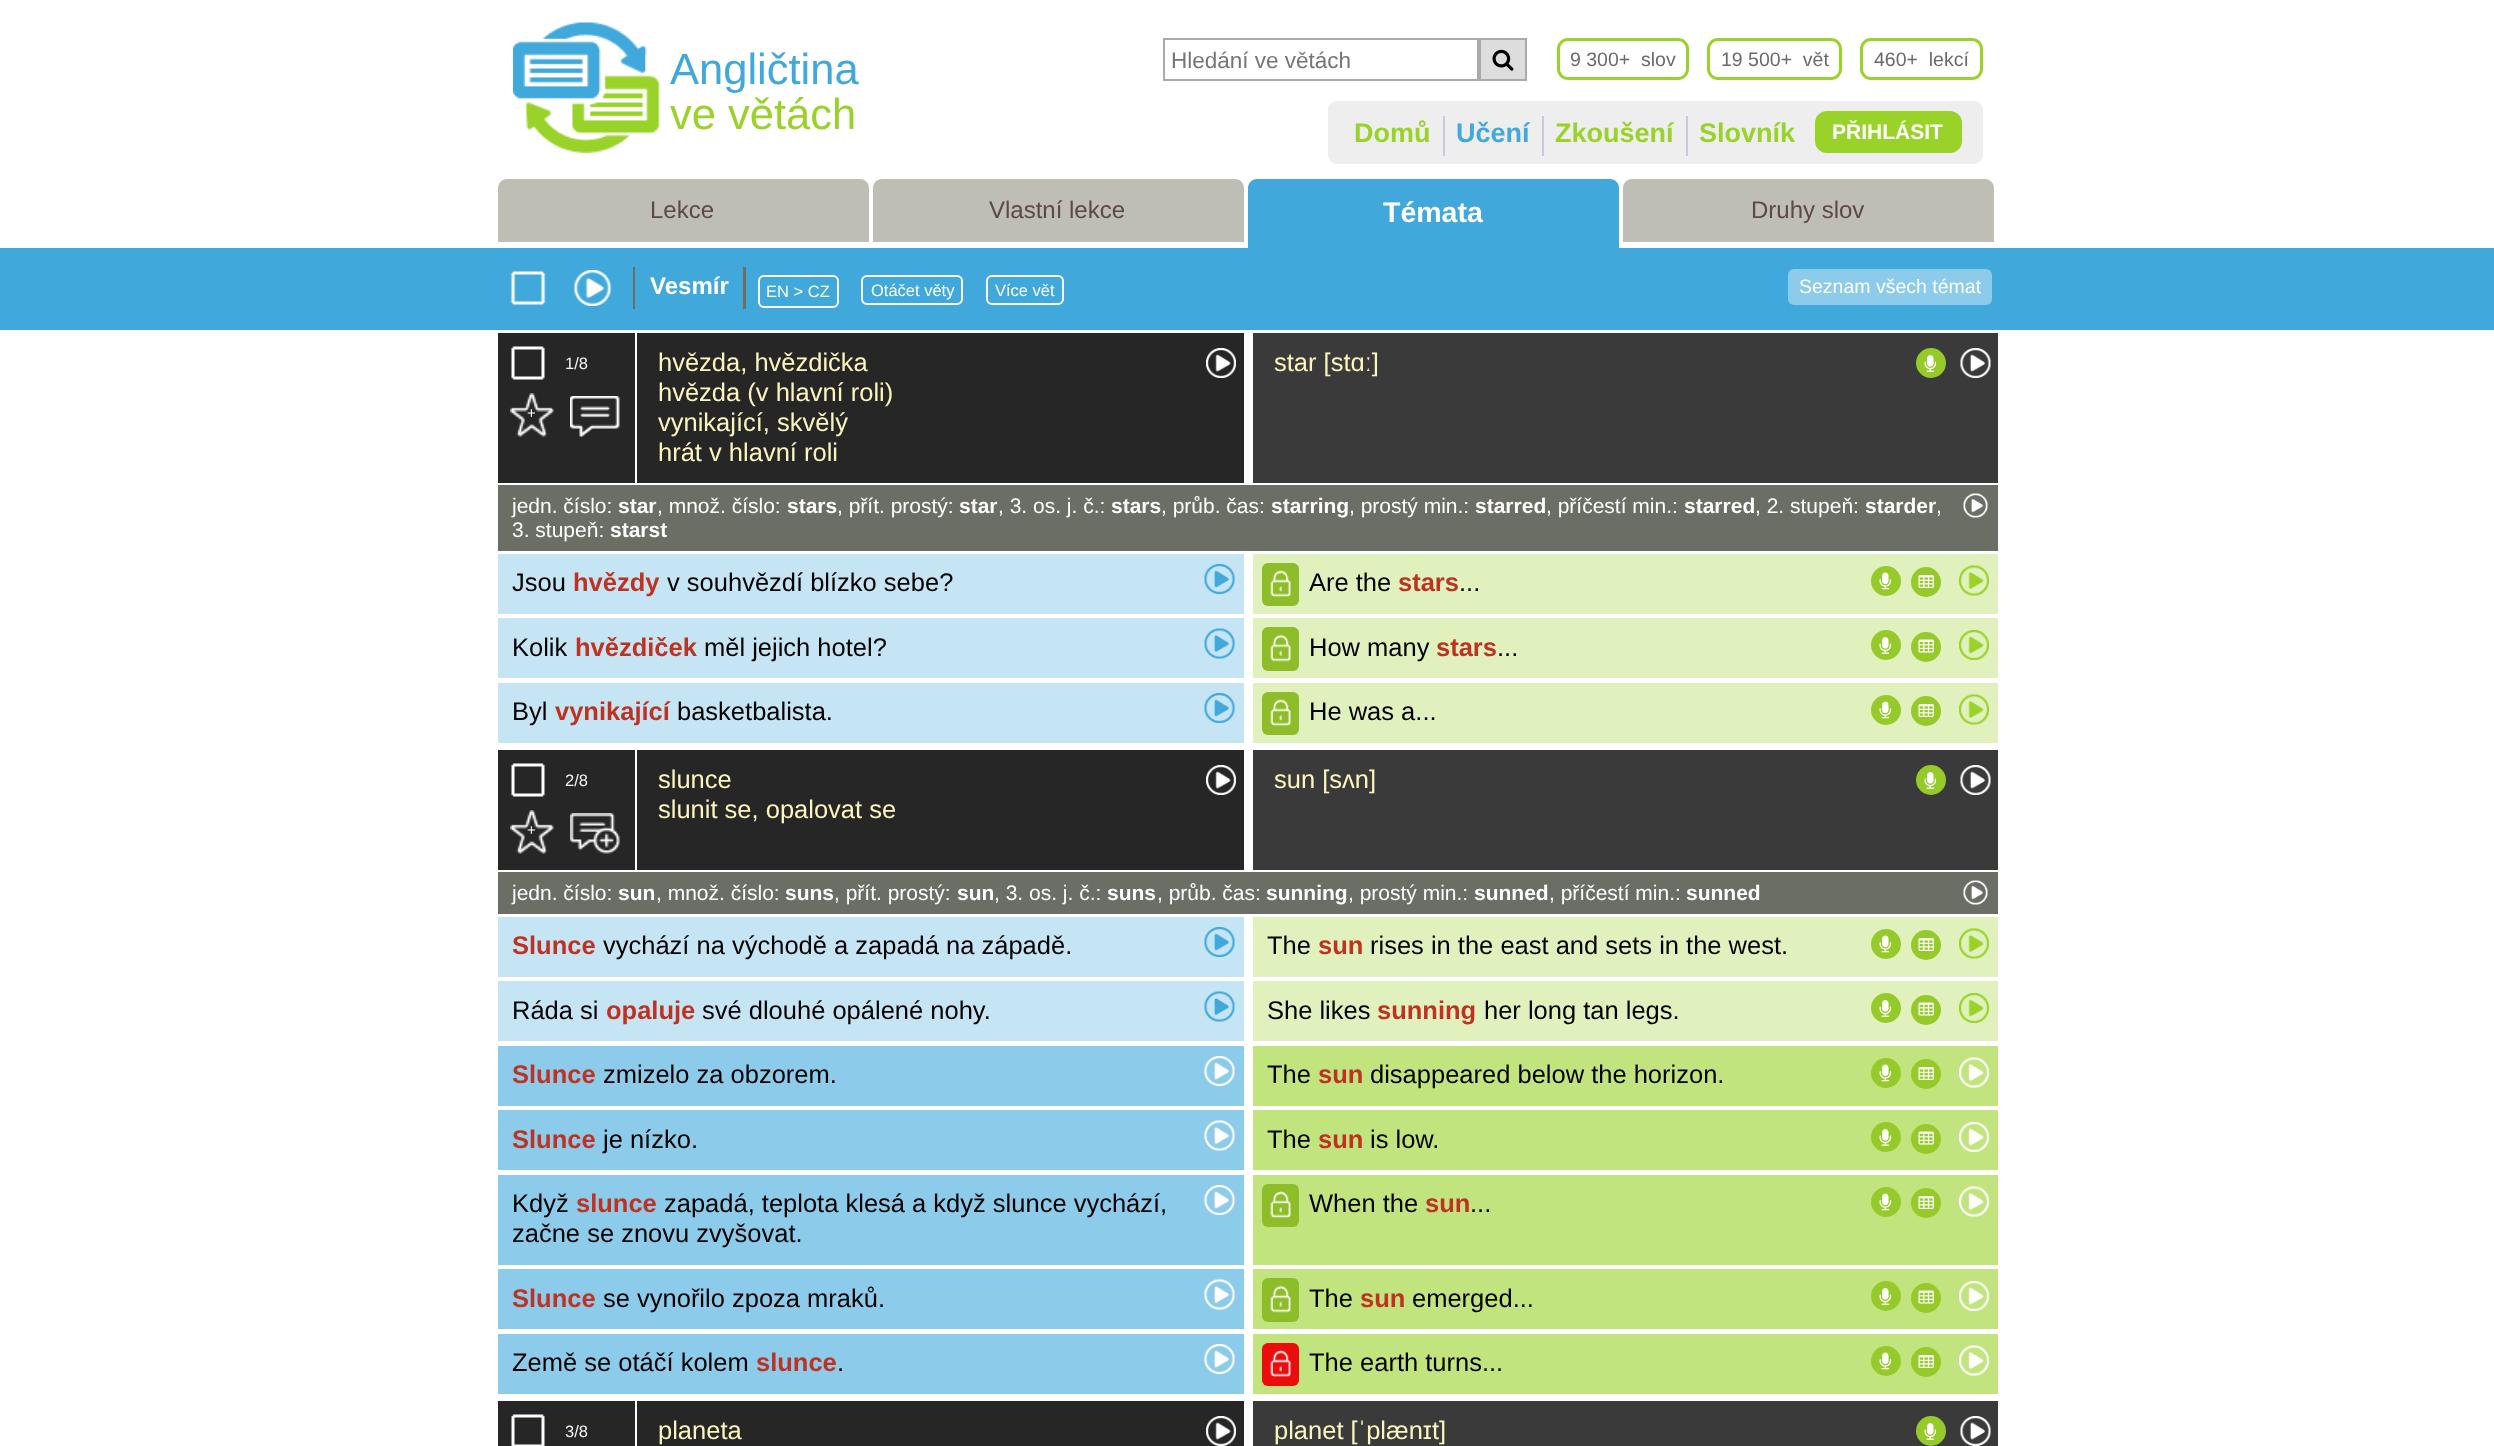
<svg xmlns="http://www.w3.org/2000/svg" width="2494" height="1446">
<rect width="100%" height="100%" fill="#fff"/>
<image x="513" y="22" width="147" height="131" href="media/1.png"/>
<text x="670" y="84" style="font-family:Liberation Sans;font-size:43.5px;fill:#40a8db">Angličtina</text>
<text x="670" y="129" style="font-family:Liberation Sans;font-size:43.5px;fill:#99d228">ve větách</text>
<rect x="1164" y="39" width="314" height="41" fill="none" stroke="#aaa" stroke-width="2"/>
<text x="1171" y="68" style="font-family:Liberation Sans;font-size:22.5px;fill:#757575">Hledání ve větách</text>
<rect x="1480" y="39" width="46" height="41" fill="#ddd" stroke="#aaa" stroke-width="2"/>
<image x="1492" y="49" width="22" height="22" href="media/2.png"/>
<rect x="1558.5" y="39.5" width="129" height="39" rx="9.5" fill="none" stroke="#99d228" stroke-width="3"/>
<text x="1570" y="66" style="font-family:Liberation Sans;font-size:19.5px;fill:#6a6a6a" xml:space="preserve">9 300+  slov</text>
<rect x="1708.5" y="39.5" width="132" height="39" rx="9.5" fill="none" stroke="#99d228" stroke-width="3"/>
<text x="1721" y="66" style="font-family:Liberation Sans;font-size:19.5px;fill:#6a6a6a" xml:space="preserve">19 500+  vět</text>
<rect x="1861.5" y="39.5" width="120" height="39" rx="9.5" fill="none" stroke="#99d228" stroke-width="3"/>
<text x="1874" y="66" style="font-family:Liberation Sans;font-size:19.5px;fill:#6a6a6a" xml:space="preserve">460+  lekcí</text>
<rect x="1328" y="101" width="655" height="63" rx="9" fill="#eee"/>
<rect x="1443" y="116" width="2" height="40" fill="#c9c9dc"/>
<text x="1354" y="142" style="font-family:Liberation Sans;font-size:27px;font-weight:bold;fill:#99d228">Domů</text>
<rect x="1542" y="116" width="2" height="40" fill="#c9c9dc"/>
<text x="1456" y="142" style="font-family:Liberation Sans;font-size:27px;font-weight:bold;fill:#40a8db">Učení</text>
<rect x="1686" y="116" width="2" height="40" fill="#c9c9dc"/>
<text x="1555" y="142" style="font-family:Liberation Sans;font-size:27px;font-weight:bold;fill:#99d228">Zkoušení</text>
<text x="1699" y="142" style="font-family:Liberation Sans;font-size:27px;font-weight:bold;fill:#99d228">Slovník</text>
<rect x="1815" y="111" width="147" height="42" rx="12" fill="#99d228"/>
<text x="1832" y="139" style="font-family:Liberation Sans;font-size:21px;font-weight:bold;fill:#fff">PŘIHLÁSIT</text>
<path d="M507 179h353c5 0 9 4 9 9v54h-371v-54c0-5 4-9 9-9z" fill="#bebeb4"/>
<text x="650" y="218" style="font-family:Liberation Sans;font-size:24px;fill:#5b4946">Lekce</text>
<path d="M882 179h353c5 0 9 4 9 9v54h-371v-54c0-5 4-9 9-9z" fill="#bebeb4"/>
<text x="989" y="218" style="font-family:Liberation Sans;font-size:24px;fill:#5b4946">Vlastní lekce</text>
<path d="M1257 179h353c5 0 9 4 9 9v60h-371v-60c0-5 4-9 9-9z" fill="#40a8db"/>
<text x="1383" y="222" style="font-family:Liberation Sans;font-size:28.5px;font-weight:bold;fill:#fff">Témata</text>
<path d="M1632 179h353c5 0 9 4 9 9v54h-371v-54c0-5 4-9 9-9z" fill="#bebeb4"/>
<text x="1751" y="218" style="font-family:Liberation Sans;font-size:24px;fill:#5b4946">Druhy slov</text>
<rect y="248" width="2494" height="82" fill="#40a8db"/>
<image x="510" y="271" width="36" height="34" href="media/3.png"/>
<image x="574" y="270" width="37" height="36" href="media/4.png"/>
<rect x="633" y="267" width="2" height="42" fill="#6b6e64"/>
<text x="650" y="294" style="font-family:Liberation Sans;font-size:24px;font-weight:bold;fill:#fff">Vesmír</text>
<rect x="743" y="267" width="3" height="42" fill="#6b6e64"/>
<rect x="759" y="276" width="79" height="31" rx="5" fill="none" stroke="#fff" stroke-width="2"/>
<text x="766" y="297" style="font-family:Liberation Sans;font-size:16.5px;fill:#fff">EN &gt; CZ</text>
<rect x="862" y="276" width="100" height="28" rx="5" fill="none" stroke="#fff" stroke-width="2"/>
<text x="871" y="296" style="font-family:Liberation Sans;font-size:16.5px;fill:#fff">Otáčet věty</text>
<rect x="987" y="276" width="76" height="28" rx="5" fill="none" stroke="#fff" stroke-width="2"/>
<text x="995" y="296" style="font-family:Liberation Sans;font-size:16.5px;fill:#fff">Více vět</text>
<rect x="1788" y="269" width="204" height="36" rx="6" fill="#8ccbea"/>
<text x="1799" y="293" style="font-family:Liberation Sans;font-size:19.5px;fill:#fff">Seznam všech témat</text>
<rect x="498" y="333" width="746" height="150" fill="#262626"/>
<rect x="635" y="333" width="2" height="150" fill="#fff"/>
<image x="511" y="346" width="34" height="34" href="media/5.png"/>
<text x="565" y="369" style="font-family:Liberation Sans;font-size:16.5px;fill:#f3f3f3">1/8</text>
<text x="527" y="418" style="font-family:Liberation Sans;font-size:15px;fill:#fff">+</text>
<image x="510" y="393" width="44" height="44" href="media/6.png"/>
<image x="570" y="396" width="50" height="41" href="media/7.png"/>
<text x="658" y="371" style="font-family:Liberation Sans;font-size:25.5px;fill:#fcf5be">hvězda, hvězdička</text>
<text x="658" y="401" style="font-family:Liberation Sans;font-size:25.5px;fill:#fcf5be">hvězda (v hlavní roli)</text>
<text x="658" y="431" style="font-family:Liberation Sans;font-size:25.5px;fill:#fcf5be">vynikající, skvělý</text>
<text x="658" y="461" style="font-family:Liberation Sans;font-size:25.5px;fill:#fcf5be">hrát v hlavní roli</text>
<image x="1206" y="348" width="30" height="30" href="media/8.png"/>
<rect x="1253" y="333" width="745" height="150" fill="#3a3a3a"/>
<text x="1274" y="371" style="font-family:Liberation Sans;font-size:25.5px;fill:#fcf5be">star [stɑː]</text>
<circle cx="1931" cy="363" r="15" fill="#96ca2b"/>
<image x="1924" y="355" width="13" height="17" href="media/9.png"/>
<image x="1960" y="348" width="31" height="30" href="media/10.png"/>
<rect x="498" y="485" width="1500" height="66" fill="#6b6e64"/>
<text x="512" y="513" style="font-family:Liberation Sans;font-size:21px;fill:#fff">jedn. číslo:</text>
<text x="618" y="513" style="font-family:Liberation Sans;font-size:21px;font-weight:bold;fill:#fff">star</text>
<text x="657" y="513" style="font-family:Liberation Sans;font-size:21px;fill:#fff">, množ. číslo:</text>
<text x="787" y="513" style="font-family:Liberation Sans;font-size:21px;font-weight:bold;fill:#fff">stars</text>
<text x="837" y="513" style="font-family:Liberation Sans;font-size:21px;fill:#fff">, přít. prostý:</text>
<text x="959" y="513" style="font-family:Liberation Sans;font-size:21px;font-weight:bold;fill:#fff">star</text>
<text x="998" y="513" style="font-family:Liberation Sans;font-size:21px;fill:#fff">, 3. os. j. č.:</text>
<text x="1111" y="513" style="font-family:Liberation Sans;font-size:21px;font-weight:bold;fill:#fff">stars</text>
<text x="1161" y="513" style="font-family:Liberation Sans;font-size:21px;fill:#fff">, průb. čas:</text>
<text x="1271" y="513" style="font-family:Liberation Sans;font-size:21px;font-weight:bold;fill:#fff">starring</text>
<text x="1349" y="513" style="font-family:Liberation Sans;font-size:21px;fill:#fff">, prostý min.:</text>
<text x="1475" y="513" style="font-family:Liberation Sans;font-size:21px;font-weight:bold;fill:#fff">starred</text>
<text x="1546" y="513" style="font-family:Liberation Sans;font-size:21px;fill:#fff">, příčestí min.:</text>
<text x="1684" y="513" style="font-family:Liberation Sans;font-size:21px;font-weight:bold;fill:#fff">starred</text>
<text x="1755" y="513" style="font-family:Liberation Sans;font-size:21px;fill:#fff">, 2. stupeň:</text>
<text x="1865" y="513" style="font-family:Liberation Sans;font-size:21px;font-weight:bold;fill:#fff">starder</text>
<text x="1936" y="513" style="font-family:Liberation Sans;font-size:21px;fill:#fff">,</text>
<image x="1963" y="493" width="25" height="25" href="media/11.png"/>
<text x="512" y="537" style="font-family:Liberation Sans;font-size:21px;fill:#fff">3. stupeň:</text>
<text x="610" y="537" style="font-family:Liberation Sans;font-size:21px;font-weight:bold;fill:#fff">starst</text>
<rect x="498" y="554" width="746" height="60" fill="#c6e5f4"/>
<text x="512" y="591" style="font-family:Liberation Sans;font-size:25.5px;fill:#000">Jsou</text>
<text x="573" y="591" style="font-family:Liberation Sans;font-size:25.5px;font-weight:bold;fill:#bf3222">hvězdy</text>
<text x="667" y="591" style="font-family:Liberation Sans;font-size:25.5px;fill:#000">v souhvězdí blízko sebe?</text>
<image x="1204" y="564" width="31" height="30" href="media/12.png"/>
<rect x="1253" y="554" width="745" height="60" fill="#e0f1be"/>
<rect x="1262" y="563" width="37" height="43" rx="6" fill="#8dbd28"/>
<image x="1270" y="570" width="21" height="27" href="media/13.png"/>
<text x="1309" y="591" style="font-family:Liberation Sans;font-size:25.5px;fill:#000">Are the</text>
<text x="1398" y="591" style="font-family:Liberation Sans;font-size:25.5px;font-weight:bold;fill:#bf3222">stars</text>
<text x="1459" y="591" style="font-family:Liberation Sans;font-size:25.5px;fill:#000">...</text>
<circle cx="1886" cy="581" r="15" fill="#96ca2b"/>
<image x="1879" y="572" width="13" height="18" href="media/14.png"/>
<circle cx="1926" cy="582" r="15" fill="#96ca2b"/>
<image x="1918" y="575" width="16" height="13" href="media/15.png"/>
<image x="1959" y="565" width="30" height="31" href="media/16.png"/>
<rect x="498" y="618" width="746" height="60" fill="#c6e5f4"/>
<text x="512" y="656" style="font-family:Liberation Sans;font-size:25.5px;fill:#000">Kolik</text>
<text x="575" y="656" style="font-family:Liberation Sans;font-size:25.5px;font-weight:bold;fill:#bf3222">hvězdiček</text>
<text x="704" y="656" style="font-family:Liberation Sans;font-size:25.5px;fill:#000">měl jejich hotel?</text>
<image x="1204" y="628" width="31" height="31" href="media/17.png"/>
<rect x="1253" y="618" width="745" height="60" fill="#e0f1be"/>
<rect x="1262" y="627" width="37" height="44" rx="6" fill="#8dbd28"/>
<image x="1270" y="634" width="21" height="28" href="media/18.png"/>
<text x="1309" y="656" style="font-family:Liberation Sans;font-size:25.5px;fill:#000">How many</text>
<text x="1436" y="656" style="font-family:Liberation Sans;font-size:25.5px;font-weight:bold;fill:#bf3222">stars</text>
<text x="1497" y="656" style="font-family:Liberation Sans;font-size:25.5px;fill:#000">...</text>
<circle cx="1886" cy="645" r="15" fill="#96ca2b"/>
<image x="1879" y="637" width="13" height="17" href="media/9.png"/>
<circle cx="1926" cy="647" r="15" fill="#96ca2b"/>
<image x="1918" y="639" width="16" height="14" href="media/19.png"/>
<image x="1959" y="630" width="30" height="30" href="media/20.png"/>
<rect x="498" y="683" width="746" height="60" fill="#c6e5f4"/>
<text x="512" y="720" style="font-family:Liberation Sans;font-size:25.5px;fill:#000">Byl</text>
<text x="555" y="720" style="font-family:Liberation Sans;font-size:25.5px;font-weight:bold;fill:#bf3222">vynikající</text>
<text x="677" y="720" style="font-family:Liberation Sans;font-size:25.5px;fill:#000">basketbalista.</text>
<image x="1204" y="693" width="31" height="30" href="media/12.png"/>
<rect x="1253" y="683" width="745" height="60" fill="#e0f1be"/>
<rect x="1262" y="692" width="37" height="43" rx="6" fill="#8dbd28"/>
<image x="1270" y="699" width="21" height="27" href="media/13.png"/>
<text x="1309" y="720" style="font-family:Liberation Sans;font-size:25.5px;fill:#000">He was a...</text>
<circle cx="1886" cy="710" r="15" fill="#96ca2b"/>
<image x="1879" y="701" width="13" height="18" href="media/14.png"/>
<circle cx="1926" cy="711" r="15" fill="#96ca2b"/>
<image x="1918" y="704" width="16" height="13" href="media/15.png"/>
<image x="1959" y="694" width="30" height="31" href="media/16.png"/>
<rect x="498" y="750" width="746" height="120" fill="#262626"/>
<rect x="635" y="750" width="2" height="120" fill="#fff"/>
<image x="511" y="763" width="34" height="34" href="media/5.png"/>
<text x="565" y="786" style="font-family:Liberation Sans;font-size:16.5px;fill:#f3f3f3">2/8</text>
<text x="527" y="835" style="font-family:Liberation Sans;font-size:15px;fill:#fff">+</text>
<image x="510" y="810" width="44" height="44" href="media/6.png"/>
<image x="570" y="813" width="50" height="41" href="media/21.png"/>
<text x="658" y="788" style="font-family:Liberation Sans;font-size:25.5px;fill:#fcf5be">slunce</text>
<text x="658" y="818" style="font-family:Liberation Sans;font-size:25.5px;fill:#fcf5be">slunit se, opalovat se</text>
<image x="1206" y="765" width="30" height="30" href="media/8.png"/>
<rect x="1253" y="750" width="745" height="120" fill="#3a3a3a"/>
<text x="1274" y="788" style="font-family:Liberation Sans;font-size:25.5px;fill:#fcf5be">sun [sʌn]</text>
<circle cx="1931" cy="780" r="15" fill="#96ca2b"/>
<image x="1924" y="772" width="13" height="17" href="media/9.png"/>
<image x="1960" y="765" width="31" height="30" href="media/10.png"/>
<rect x="498" y="872" width="1500" height="42" fill="#6b6e64"/>
<text x="512" y="900" style="font-family:Liberation Sans;font-size:21px;fill:#fff">jedn. číslo:</text>
<text x="618" y="900" style="font-family:Liberation Sans;font-size:21px;font-weight:bold;fill:#fff">sun</text>
<text x="656" y="900" style="font-family:Liberation Sans;font-size:21px;fill:#fff">, množ. číslo:</text>
<text x="785" y="900" style="font-family:Liberation Sans;font-size:21px;font-weight:bold;fill:#fff">suns</text>
<text x="834" y="900" style="font-family:Liberation Sans;font-size:21px;fill:#fff">, přít. prostý:</text>
<text x="957" y="900" style="font-family:Liberation Sans;font-size:21px;font-weight:bold;fill:#fff">sun</text>
<text x="994" y="900" style="font-family:Liberation Sans;font-size:21px;fill:#fff">, 3. os. j. č.:</text>
<text x="1107" y="900" style="font-family:Liberation Sans;font-size:21px;font-weight:bold;fill:#fff">suns</text>
<text x="1157" y="900" style="font-family:Liberation Sans;font-size:21px;fill:#fff">, průb. čas:</text>
<text x="1266" y="900" style="font-family:Liberation Sans;font-size:21px;font-weight:bold;fill:#fff">sunning</text>
<text x="1348" y="900" style="font-family:Liberation Sans;font-size:21px;fill:#fff">, prostý min.:</text>
<text x="1474" y="900" style="font-family:Liberation Sans;font-size:21px;font-weight:bold;fill:#fff">sunned</text>
<text x="1549" y="900" style="font-family:Liberation Sans;font-size:21px;fill:#fff">, příčestí min.:</text>
<text x="1686" y="900" style="font-family:Liberation Sans;font-size:21px;font-weight:bold;fill:#fff">sunned</text>
<image x="1963" y="880" width="25" height="25" href="media/11.png"/>
<rect x="498" y="917" width="746" height="60" fill="#c6e5f4"/>
<text x="512" y="954" style="font-family:Liberation Sans;font-size:25.5px;font-weight:bold;fill:#bf3222">Slunce</text>
<text x="603" y="954" style="font-family:Liberation Sans;font-size:25.5px;fill:#000">vychází na východě a zapadá na západě.</text>
<image x="1204" y="927" width="31" height="30" href="media/12.png"/>
<rect x="1253" y="917" width="745" height="60" fill="#e0f1be"/>
<text x="1267" y="954" style="font-family:Liberation Sans;font-size:25.5px;fill:#000">The</text>
<text x="1318" y="954" style="font-family:Liberation Sans;font-size:25.5px;font-weight:bold;fill:#bf3222">sun</text>
<text x="1370" y="954" style="font-family:Liberation Sans;font-size:25.5px;fill:#000">rises in the east and sets in the west.</text>
<circle cx="1886" cy="944" r="15" fill="#96ca2b"/>
<image x="1879" y="935" width="13" height="18" href="media/14.png"/>
<circle cx="1926" cy="945" r="15" fill="#96ca2b"/>
<image x="1918" y="938" width="16" height="13" href="media/15.png"/>
<image x="1959" y="928" width="30" height="31" href="media/16.png"/>
<rect x="498" y="981" width="746" height="60" fill="#c6e5f4"/>
<text x="512" y="1019" style="font-family:Liberation Sans;font-size:25.5px;fill:#000">Ráda si</text>
<text x="606" y="1019" style="font-family:Liberation Sans;font-size:25.5px;font-weight:bold;fill:#bf3222">opaluje</text>
<text x="702" y="1019" style="font-family:Liberation Sans;font-size:25.5px;fill:#000">své dlouhé opálené nohy.</text>
<image x="1204" y="991" width="31" height="31" href="media/17.png"/>
<rect x="1253" y="981" width="745" height="60" fill="#e0f1be"/>
<text x="1267" y="1019" style="font-family:Liberation Sans;font-size:25.5px;fill:#000">She likes</text>
<text x="1377" y="1019" style="font-family:Liberation Sans;font-size:25.5px;font-weight:bold;fill:#bf3222">sunning</text>
<text x="1484" y="1019" style="font-family:Liberation Sans;font-size:25.5px;fill:#000">her long tan legs.</text>
<circle cx="1886" cy="1008" r="15" fill="#96ca2b"/>
<image x="1879" y="1000" width="13" height="17" href="media/9.png"/>
<circle cx="1926" cy="1010" r="15" fill="#96ca2b"/>
<image x="1918" y="1002" width="16" height="14" href="media/19.png"/>
<image x="1959" y="993" width="30" height="30" href="media/20.png"/>
<rect x="498" y="1046" width="746" height="60" fill="#8ccbea"/>
<text x="512" y="1083" style="font-family:Liberation Sans;font-size:25.5px;font-weight:bold;fill:#bf3222">Slunce</text>
<text x="603" y="1083" style="font-family:Liberation Sans;font-size:25.5px;fill:#000">zmizelo za obzorem.</text>
<image x="1204" y="1056" width="31" height="30" href="media/22.png"/>
<rect x="1253" y="1046" width="745" height="60" fill="#c2e47e"/>
<text x="1267" y="1083" style="font-family:Liberation Sans;font-size:25.5px;fill:#000">The</text>
<text x="1318" y="1083" style="font-family:Liberation Sans;font-size:25.5px;font-weight:bold;fill:#bf3222">sun</text>
<text x="1370" y="1083" style="font-family:Liberation Sans;font-size:25.5px;fill:#000">disappeared below the horizon.</text>
<circle cx="1886" cy="1073" r="15" fill="#96ca2b"/>
<image x="1879" y="1064" width="13" height="18" href="media/14.png"/>
<circle cx="1926" cy="1074" r="15" fill="#96ca2b"/>
<image x="1918" y="1067" width="16" height="13" href="media/15.png"/>
<image x="1959" y="1057" width="30" height="31" href="media/23.png"/>
<rect x="498" y="1110" width="746" height="60" fill="#8ccbea"/>
<text x="512" y="1148" style="font-family:Liberation Sans;font-size:25.5px;font-weight:bold;fill:#bf3222">Slunce</text>
<text x="603" y="1148" style="font-family:Liberation Sans;font-size:25.5px;fill:#000">je nízko.</text>
<image x="1204" y="1120" width="31" height="31" href="media/24.png"/>
<rect x="1253" y="1110" width="745" height="60" fill="#c2e47e"/>
<text x="1267" y="1148" style="font-family:Liberation Sans;font-size:25.5px;fill:#000">The</text>
<text x="1318" y="1148" style="font-family:Liberation Sans;font-size:25.5px;font-weight:bold;fill:#bf3222">sun</text>
<text x="1370" y="1148" style="font-family:Liberation Sans;font-size:25.5px;fill:#000">is low.</text>
<circle cx="1886" cy="1137" r="15" fill="#96ca2b"/>
<image x="1879" y="1129" width="13" height="17" href="media/9.png"/>
<circle cx="1926" cy="1139" r="15" fill="#96ca2b"/>
<image x="1918" y="1131" width="16" height="14" href="media/19.png"/>
<image x="1959" y="1122" width="30" height="30" href="media/25.png"/>
<rect x="498" y="1175" width="746" height="90" fill="#8ccbea"/>
<text x="512" y="1212" style="font-family:Liberation Sans;font-size:25.5px;fill:#000">Když</text>
<text x="576" y="1212" style="font-family:Liberation Sans;font-size:25.5px;font-weight:bold;fill:#bf3222">slunce</text>
<text x="664" y="1212" style="font-family:Liberation Sans;font-size:25.5px;fill:#000">zapadá, teplota klesá a když slunce vychází,</text>
<image x="1204" y="1185" width="31" height="30" href="media/22.png"/>
<text x="512" y="1242" style="font-family:Liberation Sans;font-size:25.5px;fill:#000">začne se znovu zvyšovat.</text>
<rect x="1253" y="1175" width="745" height="90" fill="#c2e47e"/>
<rect x="1262" y="1184" width="37" height="43" rx="6" fill="#8dbd28"/>
<image x="1270" y="1191" width="21" height="27" href="media/13.png"/>
<text x="1309" y="1212" style="font-family:Liberation Sans;font-size:25.5px;fill:#000">When the</text>
<text x="1425" y="1212" style="font-family:Liberation Sans;font-size:25.5px;font-weight:bold;fill:#bf3222">sun</text>
<text x="1470" y="1212" style="font-family:Liberation Sans;font-size:25.5px;fill:#000">...</text>
<circle cx="1886" cy="1202" r="15" fill="#96ca2b"/>
<image x="1879" y="1193" width="13" height="18" href="media/14.png"/>
<circle cx="1926" cy="1203" r="15" fill="#96ca2b"/>
<image x="1918" y="1196" width="16" height="13" href="media/15.png"/>
<image x="1959" y="1186" width="30" height="31" href="media/23.png"/>
<rect x="498" y="1269" width="746" height="60" fill="#8ccbea"/>
<text x="512" y="1307" style="font-family:Liberation Sans;font-size:25.5px;font-weight:bold;fill:#bf3222">Slunce</text>
<text x="603" y="1307" style="font-family:Liberation Sans;font-size:25.5px;fill:#000">se vynořilo zpoza mraků.</text>
<image x="1204" y="1279" width="31" height="31" href="media/24.png"/>
<rect x="1253" y="1269" width="745" height="60" fill="#c2e47e"/>
<rect x="1262" y="1278" width="37" height="44" rx="6" fill="#8dbd28"/>
<image x="1270" y="1285" width="21" height="28" href="media/18.png"/>
<text x="1309" y="1307" style="font-family:Liberation Sans;font-size:25.5px;fill:#000">The</text>
<text x="1360" y="1307" style="font-family:Liberation Sans;font-size:25.5px;font-weight:bold;fill:#bf3222">sun</text>
<text x="1412" y="1307" style="font-family:Liberation Sans;font-size:25.5px;fill:#000">emerged...</text>
<circle cx="1886" cy="1296" r="15" fill="#96ca2b"/>
<image x="1879" y="1288" width="13" height="17" href="media/9.png"/>
<circle cx="1926" cy="1298" r="15" fill="#96ca2b"/>
<image x="1918" y="1290" width="16" height="14" href="media/19.png"/>
<image x="1959" y="1281" width="30" height="30" href="media/25.png"/>
<rect x="498" y="1334" width="746" height="60" fill="#8ccbea"/>
<text x="512" y="1371" style="font-family:Liberation Sans;font-size:25.5px;fill:#000">Země se otáčí kolem</text>
<text x="756" y="1371" style="font-family:Liberation Sans;font-size:25.5px;font-weight:bold;fill:#bf3222">slunce</text>
<text x="837" y="1371" style="font-family:Liberation Sans;font-size:25.5px;fill:#000">.</text>
<image x="1204" y="1344" width="31" height="30" href="media/22.png"/>
<rect x="1253" y="1334" width="745" height="60" fill="#c2e47e"/>
<rect x="1262" y="1343" width="37" height="43" rx="6" fill="#eb0c0c"/>
<image x="1270" y="1350" width="21" height="27" href="media/26.png"/>
<text x="1309" y="1371" style="font-family:Liberation Sans;font-size:25.5px;fill:#000">The earth turns...</text>
<circle cx="1886" cy="1361" r="15" fill="#96ca2b"/>
<image x="1879" y="1352" width="13" height="18" href="media/14.png"/>
<circle cx="1926" cy="1362" r="15" fill="#96ca2b"/>
<image x="1918" y="1355" width="16" height="13" href="media/15.png"/>
<image x="1959" y="1345" width="30" height="31" href="media/23.png"/>
<rect x="498" y="1401" width="746" height="45" fill="#262626"/>
<rect x="635" y="1401" width="2" height="45" fill="#fff"/>
<image x="511" y="1414" width="34" height="32" href="media/27.png"/>
<text x="565" y="1437" style="font-family:Liberation Sans;font-size:16.5px;fill:#f3f3f3">3/8</text>
<text x="658" y="1439" style="font-family:Liberation Sans;font-size:25.5px;fill:#fcf5be">planeta</text>
<image x="1206" y="1416" width="30" height="30" href="media/8.png"/>
<rect x="1253" y="1401" width="745" height="45" fill="#3a3a3a"/>
<text x="1274" y="1439" style="font-family:Liberation Sans;font-size:25.5px;fill:#fcf5be">planet [ˈplænɪt]</text>
<circle cx="1931" cy="1431" r="15" fill="#96ca2b"/>
<image x="1924" y="1423" width="13" height="17" href="media/9.png"/>
<image x="1960" y="1416" width="31" height="30" href="media/10.png"/>
</svg>
